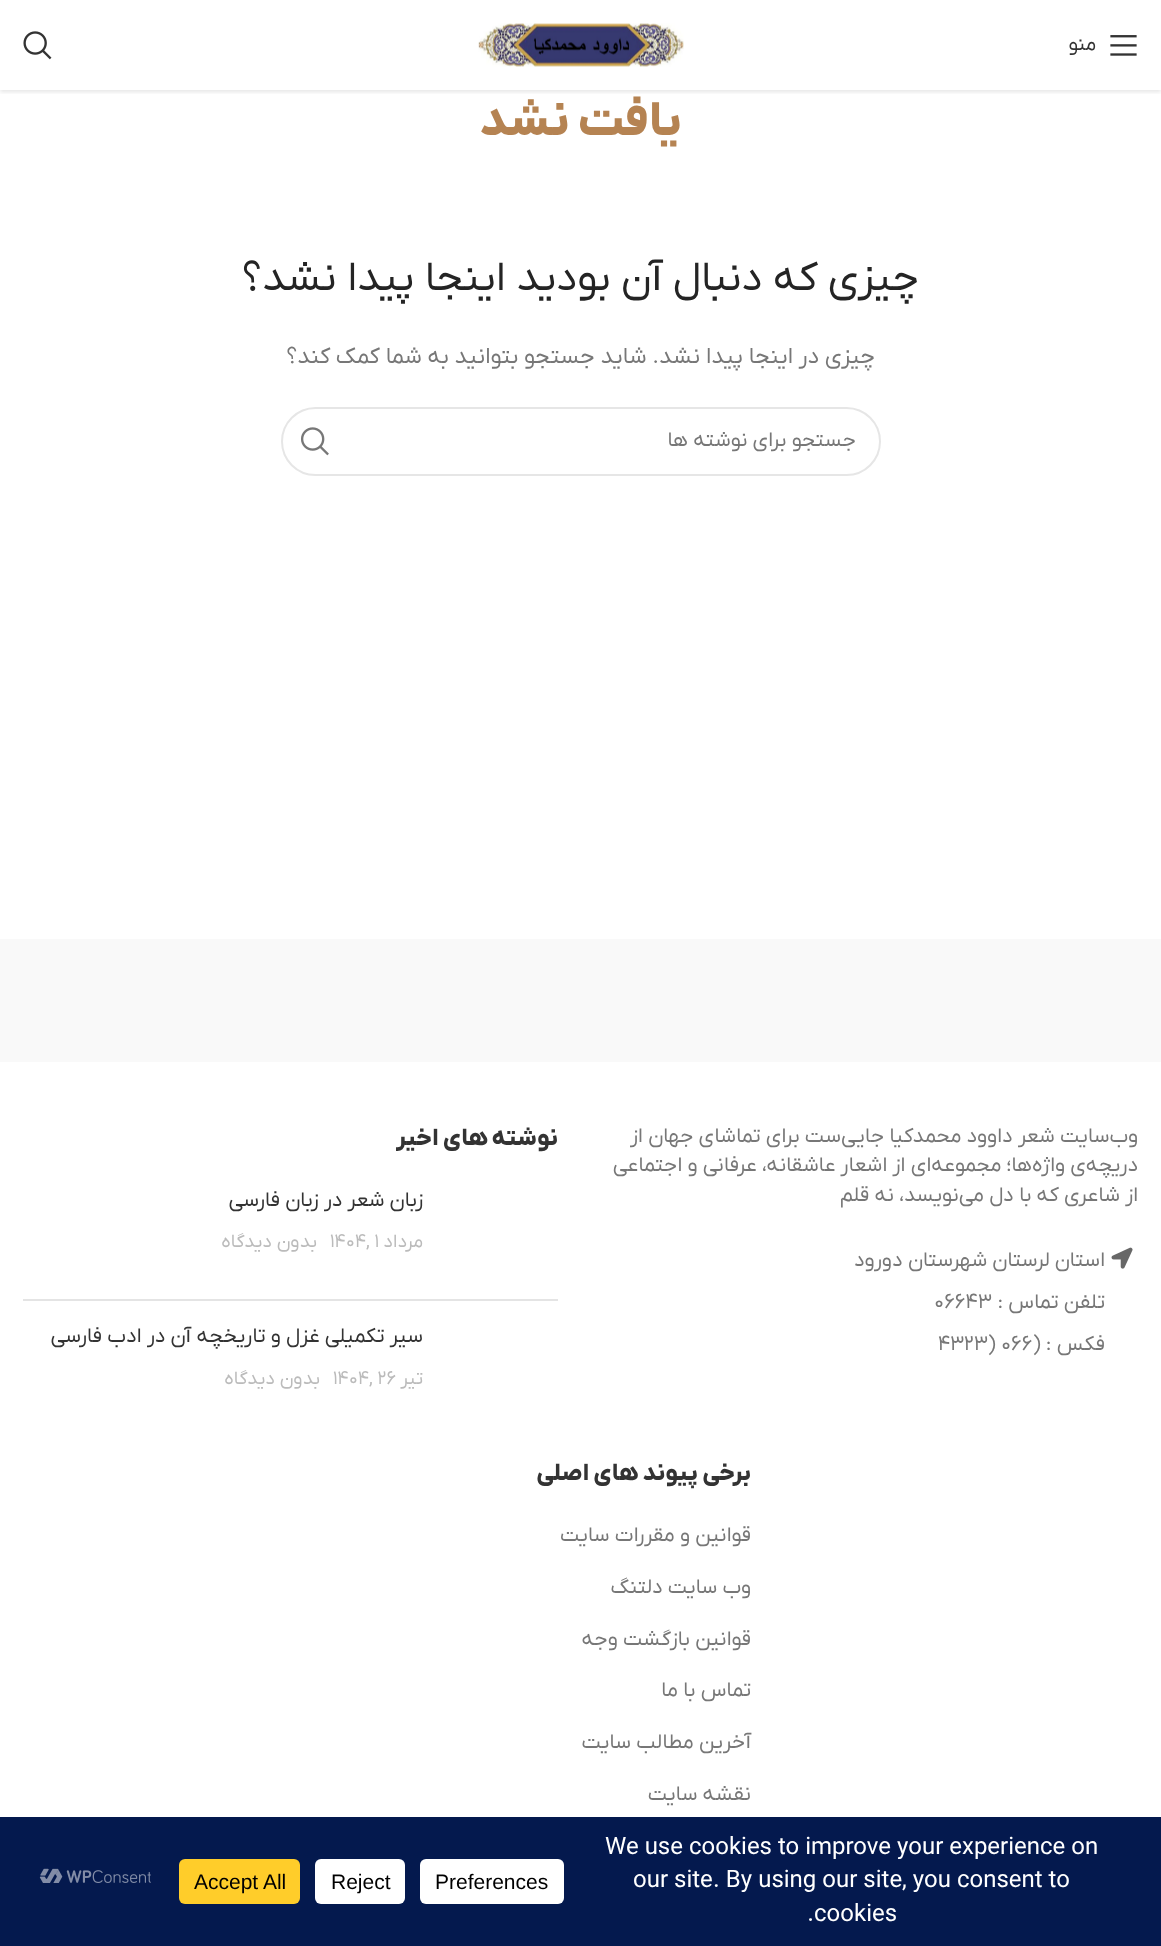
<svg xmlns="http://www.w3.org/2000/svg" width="1161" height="1946">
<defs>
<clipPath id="clip1"><rect x="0" y="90" width="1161" height="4"/></clipPath>
</defs>
<rect width="100%" height="100%" fill="#fff"/>
<g clip-path="url(#clip1)">
<rect y="2" width="1161" height="90" fill="#0000001a" filter="blur(2px)"/>
</g>
<image x="1110" y="35" width="27" height="21" href="media/1.png"/>
<text x="1096" y="50" style="font-family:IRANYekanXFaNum;font-size:20px;direction:rtl;fill:#333">منو</text>
<image x="478" y="23" width="206" height="44" href="media/2.png"/>
<image x="23" y="31" width="29" height="29" href="media/3.png"/>
<text x="682" y="135" style="font-family:IRANYekanXFaNum;font-size:48.75px;font-weight:800;direction:rtl;fill:#b58352">یافت نشد</text>
<text x="919" y="290" style="font-family:IRANYekanXFaNum;font-size:42px;direction:rtl;fill:#242424">چیزی که دنبال آن بودید اینجا پیدا نشد؟</text>
<text x="875" y="363" style="font-family:IRANYekanXFaNum;font-size:23.1px;direction:rtl;fill:#777">چیزی در اینجا پیدا نشد. شاید جستجو بتوانید به شما کمک کند؟</text>
<rect x="282" y="408" width="598" height="67" rx="33.5" fill="none" stroke="#e6e6e6" stroke-width="2"/>
<text x="856" y="446" style="font-family:IRANYekanXFaNum;font-size:21px;direction:rtl;fill:#777">جستجو برای نوشته ها</text>
<image x="301" y="427" width="28" height="29" href="media/4.png"/>
<rect y="939" width="1161" height="123" fill="#f9f9f9"/>
<text x="1138" y="1142" style="font-family:IRANYekanXFaNum;font-size:21px;direction:rtl;fill:#777">وب‌سایت شعر داوود محمدکیا جایی‌ست برای تماشای جهان از</text>
<text x="1138" y="1171" style="font-family:IRANYekanXFaNum;font-size:21px;direction:rtl;fill:#777">دریچه‌ی واژه‌ها؛ مجموعه‌ای از اشعار عاشقانه، عرفانی و اجتماعی</text>
<text x="1138" y="1201" style="font-family:IRANYekanXFaNum;font-size:21px;direction:rtl;fill:#777">از شاعری که با دل می‌نویسد، نه قلم</text>
<image x="1111" y="1247" width="22" height="22" href="media/5.png"/>
<text x="1105" y="1266" style="font-family:IRANYekanXFaNum;font-size:21px;direction:rtl;fill:#777">استان لرستان شهرستان دورود</text>
<text x="1105" y="1308" style="font-family:IRANYekanXFaNum;font-size:21px;direction:rtl;fill:#777">تلفن تماس :</text>
<text x="934" y="1308" style="font-family:IRANYekanXFaNum;font-size:21px;fill:#777">06643</text>
<text x="1105" y="1350" style="font-family:IRANYekanXFaNum;font-size:21px;direction:rtl;fill:#777">فکس : (</text>
<text x="938" y="1350" style="font-family:IRANYekanXFaNum;font-size:21px;fill:#777">4323) 066</text>
<text x="558" y="1145" style="font-family:IRANYekanXFaNum;font-size:24px;font-weight:800;direction:rtl;fill:#333">نوشته های اخیر</text>
<rect x="23" y="1299" width="535" height="2" fill="#e4e4e4"/>
<text x="423" y="1206" style="font-family:IRANYekanXFaNum;font-size:21px;direction:rtl;fill:#333">زبان شعر در زبان فارسی</text>
<text x="423" y="1247" style="font-family:IRANYekanXFaNum;font-size:19px;direction:rtl;fill:#bbb">مرداد</text>
<text x="330" y="1247" style="font-family:IRANYekanXFaNum;font-size:19px;fill:#bbb">1404, 1</text>
<text x="317" y="1247" style="font-family:IRANYekanXFaNum;font-size:19px;direction:rtl;fill:#bbb">بدون دیدگاه</text>
<text x="423" y="1342" style="font-family:IRANYekanXFaNum;font-size:21px;direction:rtl;fill:#333">سیر تکمیلی غزل و تاریخچه آن در ادب فارسی</text>
<text x="423" y="1384" style="font-family:IRANYekanXFaNum;font-size:19px;direction:rtl;fill:#bbb">تیر</text>
<text x="333" y="1384" style="font-family:IRANYekanXFaNum;font-size:19px;fill:#bbb">1404, 26</text>
<text x="320" y="1384" style="font-family:IRANYekanXFaNum;font-size:19px;direction:rtl;fill:#bbb">بدون دیدگاه</text>
<text x="751" y="1480" style="font-family:IRANYekanXFaNum;font-size:24px;font-weight:800;direction:rtl;fill:#333">برخی پیوند های اصلی</text>
<text x="751" y="1541" style="font-family:IRANYekanXFaNum;font-size:21px;direction:rtl;fill:#777">قوانین و مقررات سایت</text>
<text x="751" y="1593" style="font-family:IRANYekanXFaNum;font-size:21px;direction:rtl;fill:#777">وب سایت دلتنگ</text>
<text x="751" y="1645" style="font-family:IRANYekanXFaNum;font-size:21px;direction:rtl;fill:#777">قوانین بازگشت وجه</text>
<text x="751" y="1696" style="font-family:IRANYekanXFaNum;font-size:21px;direction:rtl;fill:#777">تماس با ما</text>
<text x="751" y="1748" style="font-family:IRANYekanXFaNum;font-size:21px;direction:rtl;fill:#777">آخرین مطالب سایت</text>
<text x="751" y="1800" style="font-family:IRANYekanXFaNum;font-size:21px;direction:rtl;fill:#777">نقشه سایت</text>
<rect y="1817" width="1161" height="129" fill="#04194e"/>
<text x="605" y="1854" style="font-family:IRANYekanXFaNum;font-size:24px;fill:#fff">We use cookies to improve your experience on</text>
<text x="633" y="1887" style="font-family:IRANYekanXFaNum;font-size:24px;fill:#fff">our site. By using our site, you consent to</text>
<text x="807" y="1921" style="font-family:IRANYekanXFaNum;font-size:24px;fill:#fff">.cookies</text>
<rect x="420" y="1859" width="144" height="45" rx="6" fill="#fff"/>
<text x="435" y="1889" style="font-family:Liberation Sans;font-size:21px;fill:#000">Preferences</text>
<rect x="315" y="1859" width="90" height="45" rx="6" fill="#fff"/>
<text x="331" y="1889" style="font-family:Liberation Sans;font-size:21px;fill:#000">Reject</text>
<rect x="179" y="1859" width="121" height="45" rx="6" fill="#ffcd2a"/>
<text x="194" y="1889" style="font-family:Liberation Sans;font-size:21px;fill:#000">Accept All</text>
<image x="39" y="1868" width="112" height="15" href="media/6.png"/>
</svg>
